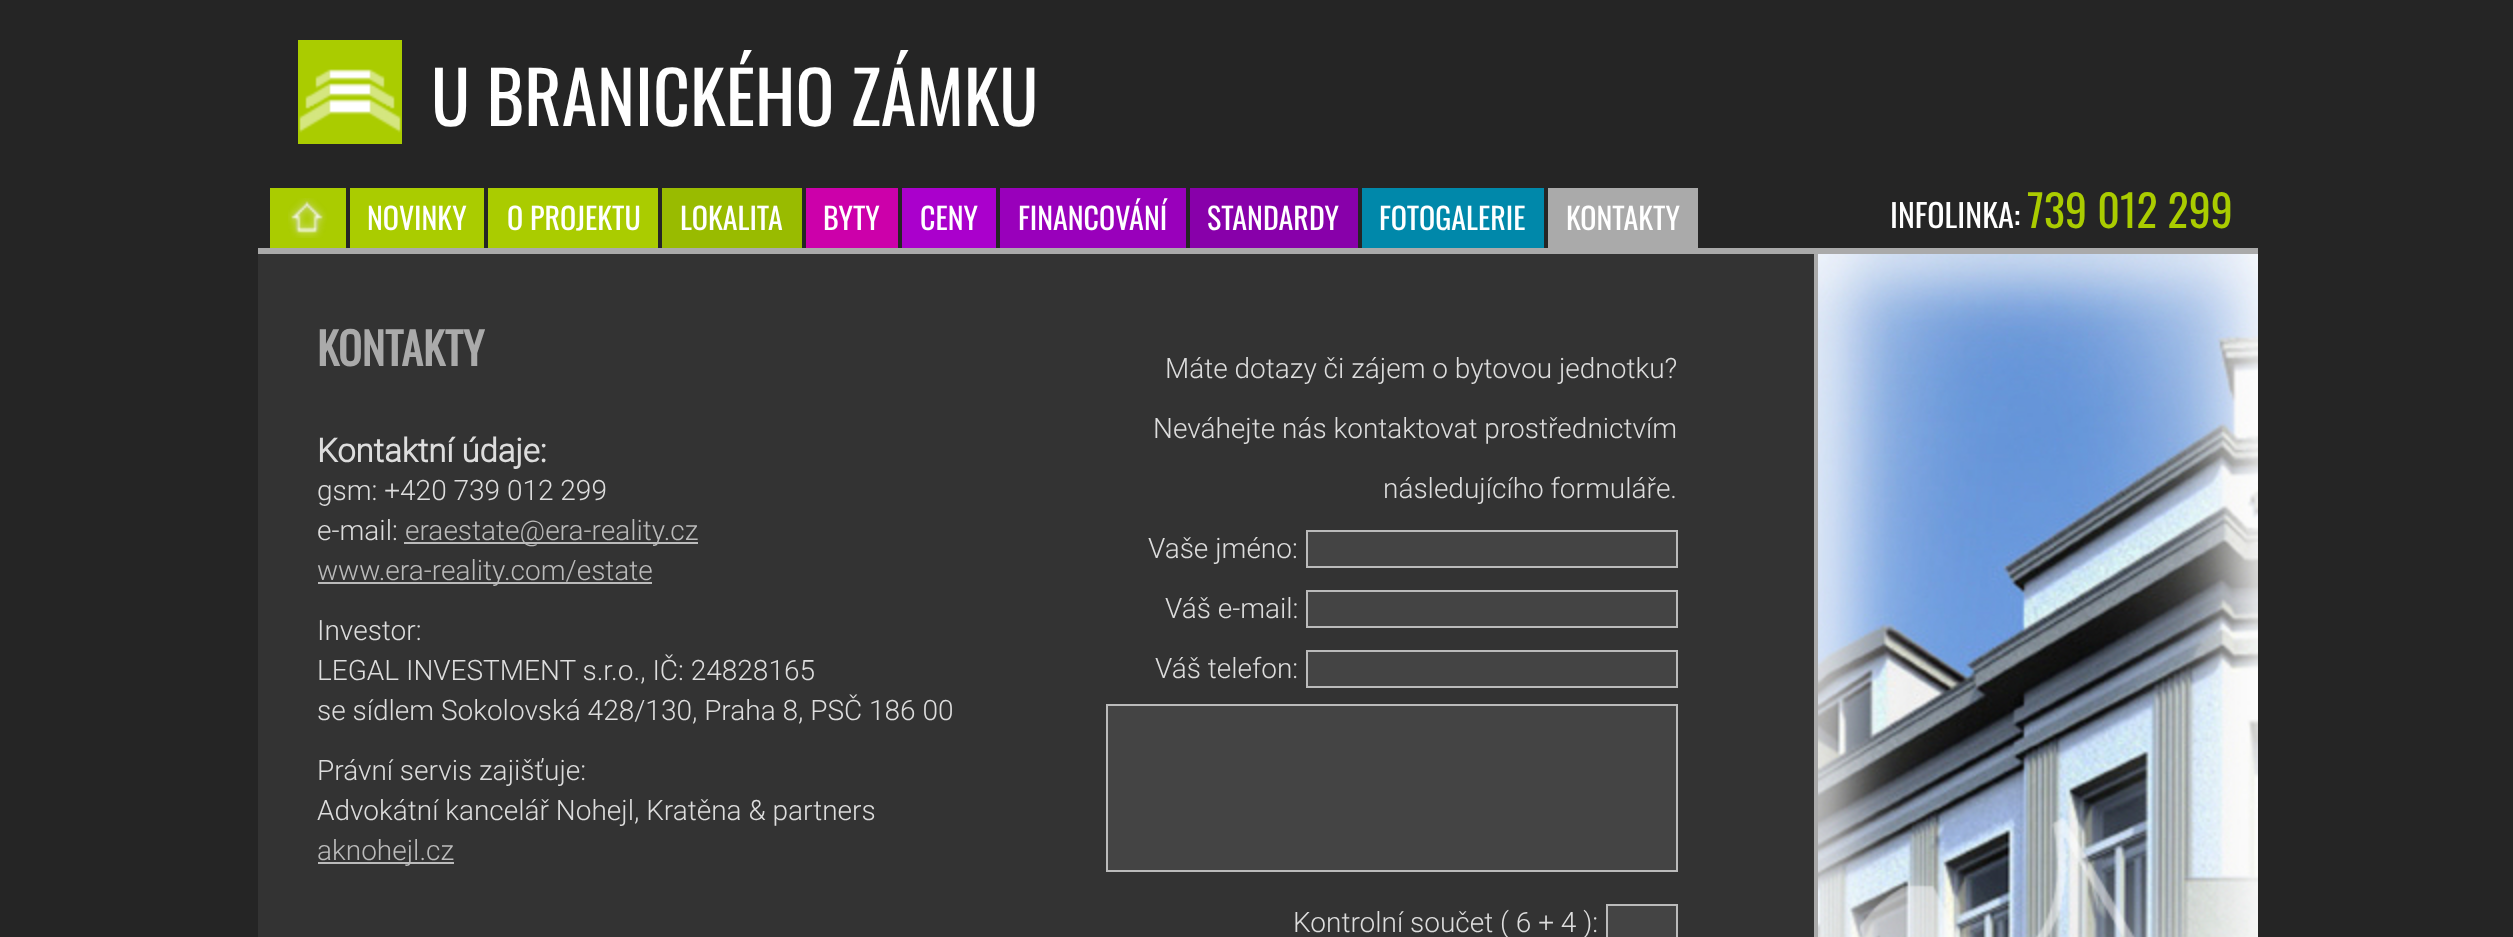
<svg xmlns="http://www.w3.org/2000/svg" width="2513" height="937">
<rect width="100%" height="100%" fill="#252525"/>
<rect x="298" y="40" width="104" height="104" fill="#ac0"/>
<image x="299" y="69" width="102" height="64" href="media/1.png"/>
<text x="431" y="126" style="font-family:Oswald;font-size:72px;fill:#fff">U BRANICKÉHO ZÁMKU</text>
<rect x="270" y="188" width="76" height="60" fill="#ac0"/>
<image x="288" y="198" width="39" height="40" href="media/2.png"/>
<rect x="350" y="188" width="134" height="60" fill="#ac0"/>
<text x="367" y="230" style="font-family:Oswald;font-size:30px;fill:#fff">NOVINKY</text>
<rect x="488" y="188" width="170" height="60" fill="#ac0"/>
<text x="507" y="230" style="font-family:Oswald;font-size:30px;fill:#fff">O PROJEKTU</text>
<rect x="662" y="188" width="140" height="60" fill="#9b0"/>
<text x="680" y="230" style="font-family:Oswald;font-size:30px;fill:#fff">LOKALITA</text>
<rect x="806" y="188" width="92" height="60" fill="#c0a"/>
<text x="823" y="230" style="font-family:Oswald;font-size:30px;fill:#fff">BYTY</text>
<rect x="902" y="188" width="94" height="60" fill="#a0c"/>
<text x="920" y="230" style="font-family:Oswald;font-size:30px;fill:#fff">CENY</text>
<rect x="1000" y="188" width="186" height="60" fill="#90b"/>
<text x="1018" y="230" style="font-family:Oswald;font-size:30px;fill:#fff">FINANCOVÁNÍ</text>
<rect x="1190" y="188" width="168" height="60" fill="#80a"/>
<text x="1207" y="230" style="font-family:Oswald;font-size:30px;fill:#fff">STANDARDY</text>
<rect x="1362" y="188" width="182" height="60" fill="#08a"/>
<text x="1379" y="230" style="font-family:Oswald;font-size:30px;fill:#fff">FOTOGALERIE</text>
<rect x="1548" y="188" width="150" height="60" fill="#aaa"/>
<text x="1566" y="230" style="font-family:Oswald;font-size:30px;fill:#fff">KONTAKTY</text>
<text x="1890" y="228" style="font-family:Oswald;font-size:32px;fill:#fff">INFOLINKA:</text>
<text x="2027" y="228" style="font-family:Oswald;font-size:44px;fill:#ac0">739 012 299</text>
<rect x="258" y="254" width="1556" height="683" fill="#333"/>
<rect x="258" y="248" width="2000" height="6" fill="#aaa"/>
<text x="317" y="366" style="font-family:Oswald;font-size:44px;font-weight:bold;fill:#aaa">KONTAKTY</text>
<text x="317" y="462" style="font-family:Roboto;font-size:32.75px;font-weight:bold;fill:#ddd">Kontaktní údaje:</text>
<text x="317" y="500" style="font-family:Roboto;font-size:28px;font-weight:300;fill:#ddd">gsm: +420 739 012 299</text>
<text x="317" y="540" style="font-family:Roboto;font-size:28px;font-weight:300;fill:#ddd">e-mail:</text>
<rect x="404" y="542" width="294" height="2" fill="#bbb"/>
<text x="405" y="540" style="font-family:Roboto;font-size:28px;font-weight:300;fill:#bbb">eraestate@era-reality.cz</text>
<rect x="318" y="582" width="334" height="2" fill="#bbb"/>
<text x="317" y="580" style="font-family:Roboto;font-size:28px;font-weight:300;fill:#bbb">www.era-reality.com/estate</text>
<text x="317" y="640" style="font-family:Roboto;font-size:28px;font-weight:300;fill:#ddd">Investor:</text>
<text x="317" y="680" style="font-family:Roboto;font-size:28px;font-weight:300;fill:#ddd">LEGAL INVESTMENT s.r.o., IČ: 24828165</text>
<text x="317" y="720" style="font-family:Roboto;font-size:28px;font-weight:300;fill:#ddd">se sídlem Sokolovská 428/130, Praha 8, PSČ 186 00</text>
<text x="317" y="780" style="font-family:Roboto;font-size:28px;font-weight:300;fill:#ddd">Právní servis zajišťuje:</text>
<text x="317" y="820" style="font-family:Roboto;font-size:28px;font-weight:300;fill:#ddd">Advokátní kancelář Nohejl, Kratěna &amp; partners</text>
<rect x="318" y="862" width="136" height="2" fill="#bbb"/>
<text x="317" y="860" style="font-family:Roboto;font-size:28px;font-weight:300;fill:#bbb">aknohejl.cz</text>
<text x="1165" y="378" style="font-family:Roboto;font-size:28px;font-weight:300;fill:#ddd">Máte dotazy či zájem o bytovou jednotku?</text>
<text x="1153" y="438" style="font-family:Roboto;font-size:28px;font-weight:300;fill:#ddd">Neváhejte nás kontaktovat prostřednictvím</text>
<text x="1383" y="498" style="font-family:Roboto;font-size:28px;font-weight:300;fill:#ddd">následujícího formuláře.</text>
<text x="1148" y="558" style="font-family:Roboto;font-size:28px;font-weight:300;fill:#ddd">Vaše jméno:</text>
<rect x="1307" y="531" width="370" height="36" fill="#444" stroke="#bbb" stroke-width="2"/>
<text x="1165" y="618" style="font-family:Roboto;font-size:28px;font-weight:300;fill:#ddd">Váš e-mail:</text>
<rect x="1307" y="591" width="370" height="36" fill="#444" stroke="#bbb" stroke-width="2"/>
<text x="1155" y="678" style="font-family:Roboto;font-size:28px;font-weight:300;fill:#ddd">Váš telefon:</text>
<rect x="1307" y="651" width="370" height="36" fill="#444" stroke="#bbb" stroke-width="2"/>
<rect x="1107" y="705" width="570" height="166" fill="#444" stroke="#bbb" stroke-width="2"/>
<text x="1293" y="932" style="font-family:Roboto;font-size:28px;font-weight:300;fill:#ddd">Kontrolní součet ( 6 + 4 ):</text>
<rect x="1607" y="905" width="70" height="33" fill="#444" stroke="#bbb" stroke-width="2"/>
<rect x="1814" y="254" width="4" height="683" fill="#aaa"/>
<image x="1818" y="254" width="440" height="683" href="media/3.png"/>
</svg>
